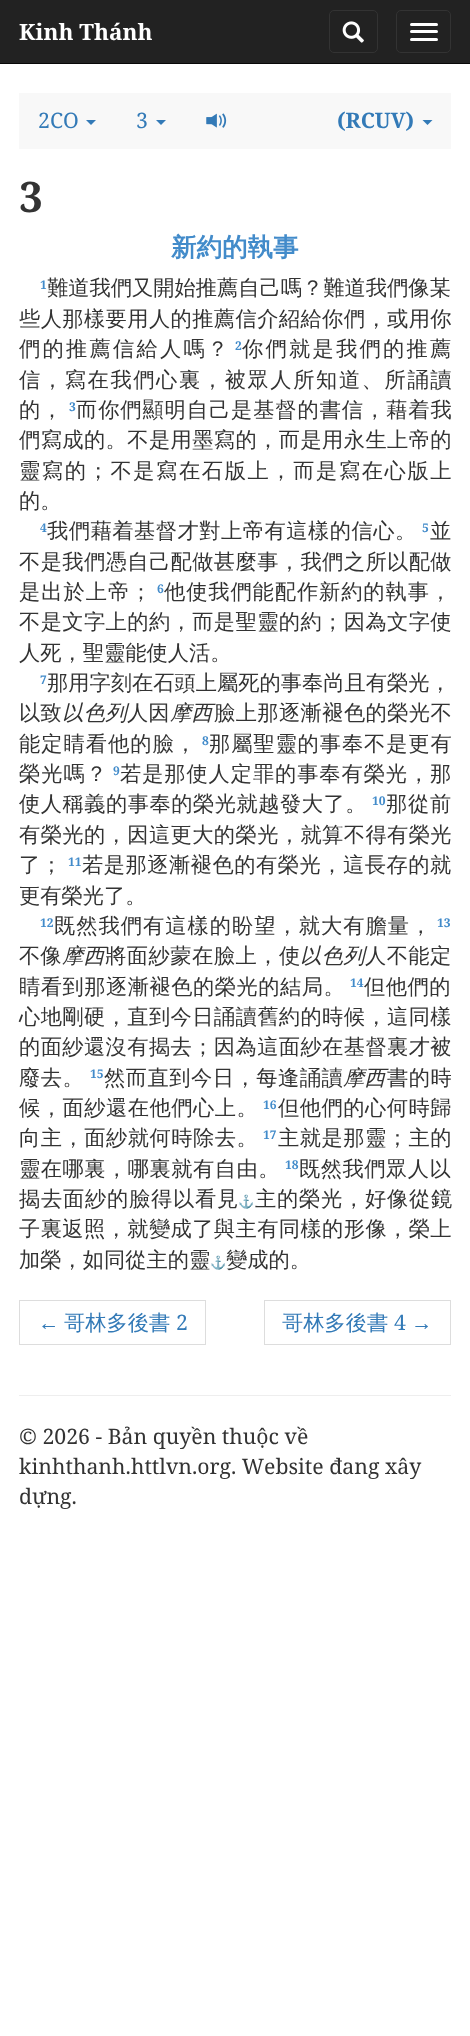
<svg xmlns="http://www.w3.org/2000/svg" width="470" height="2036">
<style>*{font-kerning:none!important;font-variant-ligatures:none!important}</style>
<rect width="100%" height="100%" fill="#fff"/>
<rect width="470" height="63" fill="#222"/>
<rect y="63" width="470" height="1" fill="#080808"/>
<text x="19" y="40" style="font-family:Noto Serif;font-size:22.5px;font-weight:bold;fill:#fff">Kinh Thánh</text>
<rect x="329.5" y="10.5" width="48" height="42" rx="4.5" fill="none" stroke="#333"/>
<image x="342" y="21" width="22" height="22" href="media/1.png"/>
<rect x="396.5" y="10.5" width="54" height="42" rx="4.5" fill="none" stroke="#333"/>
<rect x="410" y="23" width="28" height="3" rx="1.5" fill="#fff"/>
<rect x="410" y="30" width="28" height="3" rx="1.5" fill="#fff"/>
<rect x="410" y="38" width="28" height="3" rx="1.5" fill="#fff"/>
<rect x="19" y="93" width="432" height="56" fill="#f8f8f8"/>
<text x="38" y="128" style="font-family:Noto Serif;font-size:21.25px;fill:#337ab7">2CO</text>
<path d="M86 120h10l-5 5z" fill="#337ab7"/>
<text x="136" y="128" style="font-family:Noto Serif;font-size:21.25px;fill:#337ab7">3</text>
<path d="M156 120h10l-5 5z" fill="#337ab7"/>
<image x="206" y="113" width="21" height="15" href="media/2.png"/>
<text x="337" y="128" style="font-family:Noto Serif;font-size:21.25px;font-weight:bold;fill:#337ab7">(RCUV)</text>
<path d="M422.5 120h10l-5 5z" fill="#337ab7"/>
<text x="19" y="212" style="font-family:Noto Serif;font-size:42px;font-weight:bold;fill:#333">3</text>
<text x="171" y="256" style="font-family:WenQuanYi Zen Hei;font-size:25.5px;font-weight:bold;fill:#428bca">新約的執事</text>
<text x="40" y="289" style="font-family:Noto Serif;font-size:12px;font-weight:bold;fill:#428bca">1</text>
<text x="47" y="295" style="font-family:WenQuanYi Zen Hei;font-size:21.25px;font-weight:500;fill:#333">難道我們又開始推薦自己嗎？難道我們像某</text>
<text x="19" y="326" style="font-family:WenQuanYi Zen Hei;font-size:21.25px;font-weight:500;letter-spacing:0.4px;fill:#333">些人那樣要用人的推薦信介紹給你們，或用你</text>
<text x="19" y="356" style="font-family:WenQuanYi Zen Hei;font-size:21.25px;font-weight:500;letter-spacing:2.25px;fill:#333">們的推薦信給人嗎？</text>
<text x="235" y="350" style="font-family:Noto Serif;font-size:12px;font-weight:bold;fill:#428bca">2</text>
<text x="242" y="356" style="font-family:WenQuanYi Zen Hei;font-size:21.25px;font-weight:500;letter-spacing:2.25px;fill:#333">你們就是我們的推薦</text>
<text x="19" y="387" style="font-family:WenQuanYi Zen Hei;font-size:21.25px;font-weight:500;letter-spacing:1.6px;fill:#333">信，寫在我們心裏，被眾人所知道、所誦讀</text>
<text x="19" y="417" style="font-family:WenQuanYi Zen Hei;font-size:21.25px;font-weight:500;letter-spacing:1px;fill:#333">的，</text>
<text x="69" y="411" style="font-family:Noto Serif;font-size:12px;font-weight:bold;fill:#428bca">3</text>
<text x="76" y="417" style="font-family:WenQuanYi Zen Hei;font-size:21.25px;font-weight:500;letter-spacing:0.9px;fill:#333">而你們顯明自己是基督的書信，藉着我</text>
<text x="19" y="447" style="font-family:WenQuanYi Zen Hei;font-size:21.25px;font-weight:500;letter-spacing:0.4px;fill:#333">們寫成的。不是用墨寫的，而是用永生上帝的</text>
<text x="19" y="478" style="font-family:WenQuanYi Zen Hei;font-size:21.25px;font-weight:500;letter-spacing:1.6px;fill:#333">靈寫的；不是寫在石版上，而是寫在心版上</text>
<text x="19" y="508" style="font-family:WenQuanYi Zen Hei;font-size:21.25px;font-weight:500;fill:#333">的。</text>
<text x="40" y="532" style="font-family:Noto Serif;font-size:12px;font-weight:bold;fill:#428bca">4</text>
<text x="47" y="538" style="font-family:WenQuanYi Zen Hei;font-size:21.25px;font-weight:500;letter-spacing:0.5px;fill:#333">我們藉着基督才對上帝有這樣的信心。</text>
<text x="422" y="532" style="font-family:Noto Serif;font-size:12px;font-weight:bold;fill:#428bca">5</text>
<text x="430" y="538" style="font-family:WenQuanYi Zen Hei;font-size:21.25px;font-weight:500;fill:#333">並</text>
<text x="19" y="569" style="font-family:WenQuanYi Zen Hei;font-size:21.25px;font-weight:500;letter-spacing:0.4px;fill:#333">不是我們憑自己配做甚麼事，我們之所以配做</text>
<text x="19" y="599" style="font-family:WenQuanYi Zen Hei;font-size:21.25px;font-weight:500;letter-spacing:1px;fill:#333">是出於上帝；</text>
<text x="157" y="593" style="font-family:Noto Serif;font-size:12px;font-weight:bold;fill:#428bca">6</text>
<text x="164" y="599" style="font-family:WenQuanYi Zen Hei;font-size:21.25px;font-weight:500;letter-spacing:0.9px;fill:#333">他使我們能配作新約的執事，</text>
<text x="19" y="629" style="font-family:WenQuanYi Zen Hei;font-size:21.25px;font-weight:500;letter-spacing:0.4px;fill:#333">不是文字上的約，而是聖靈的約；因為文字使</text>
<text x="19" y="660" style="font-family:WenQuanYi Zen Hei;font-size:21.25px;font-weight:500;fill:#333">人死，聖靈能使人活。</text>
<text x="40" y="684" style="font-family:Noto Serif;font-size:12px;font-weight:bold;fill:#428bca">7</text>
<text x="47" y="690" style="font-family:WenQuanYi Zen Hei;font-size:21.25px;font-weight:500;fill:#333">那用字刻在石頭上屬死的事奉尚且有榮光，</text>
<text x="19" y="720" style="font-family:WenQuanYi Zen Hei;font-size:21.25px;font-weight:500;fill:#333">以致</text>
<text x="62" y="720" style="font-family:WenQuanYi Zen Hei;font-size:21.25px;font-weight:500;font-style:italic;letter-spacing:0.5px;fill:#333">以色列</text>
<text x="127" y="720" style="font-family:WenQuanYi Zen Hei;font-size:21.25px;font-weight:500;fill:#333">人因</text>
<text x="170" y="720" style="font-family:WenQuanYi Zen Hei;font-size:21.25px;font-weight:500;font-style:italic;fill:#333">摩西</text>
<text x="214" y="720" style="font-family:WenQuanYi Zen Hei;font-size:21.25px;font-weight:500;letter-spacing:0.4px;fill:#333">臉上那逐漸褪色的榮光不</text>
<text x="19" y="751" style="font-family:WenQuanYi Zen Hei;font-size:21.25px;font-weight:500;letter-spacing:1px;fill:#333">能定睛看他的臉，</text>
<text x="202" y="745" style="font-family:Noto Serif;font-size:12px;font-weight:bold;fill:#428bca">8</text>
<text x="209" y="751" style="font-family:WenQuanYi Zen Hei;font-size:21.25px;font-weight:500;letter-spacing:0.9px;fill:#333">那屬聖靈的事奉不是更有</text>
<text x="19" y="781" style="font-family:WenQuanYi Zen Hei;font-size:21.25px;font-weight:500;letter-spacing:1px;fill:#333">榮光嗎？</text>
<text x="113" y="775" style="font-family:Noto Serif;font-size:12px;font-weight:bold;fill:#428bca">9</text>
<text x="120" y="781" style="font-family:WenQuanYi Zen Hei;font-size:21.25px;font-weight:500;letter-spacing:0.9px;fill:#333">若是那使人定罪的事奉有榮光，那</text>
<text x="19" y="811" style="font-family:WenQuanYi Zen Hei;font-size:21.25px;font-weight:500;letter-spacing:0.5px;fill:#333">使人稱義的事奉的榮光就越發大了。</text>
<text x="372" y="805" style="font-family:Noto Serif;font-size:12px;font-weight:bold;fill:#428bca">10</text>
<text x="386" y="811" style="font-family:WenQuanYi Zen Hei;font-size:21.25px;font-weight:500;letter-spacing:0.75px;fill:#333">那從前</text>
<text x="19" y="842" style="font-family:WenQuanYi Zen Hei;font-size:21.25px;font-weight:500;letter-spacing:0.4px;fill:#333">有榮光的，因這更大的榮光，就算不得有榮光</text>
<text x="19" y="872" style="font-family:WenQuanYi Zen Hei;font-size:21.25px;font-weight:500;letter-spacing:0.5px;fill:#333">了；</text>
<text x="68" y="866" style="font-family:Noto Serif;font-size:12px;font-weight:bold;fill:#428bca">11</text>
<text x="82" y="872" style="font-family:WenQuanYi Zen Hei;font-size:21.25px;font-weight:500;letter-spacing:0.5px;fill:#333">若是那逐漸褪色的有榮光，這長存的就</text>
<text x="19" y="903" style="font-family:WenQuanYi Zen Hei;font-size:21.25px;font-weight:500;fill:#333">更有榮光了。</text>
<text x="40" y="927" style="font-family:Noto Serif;font-size:12px;font-weight:bold;fill:#428bca">12</text>
<text x="54" y="933" style="font-family:WenQuanYi Zen Hei;font-size:21.25px;font-weight:500;letter-spacing:1px;fill:#333">既然我們有這樣的盼望，就大有膽量，</text>
<text x="437" y="927" style="font-family:Noto Serif;font-size:12px;font-weight:bold;fill:#428bca">13</text>
<text x="19" y="963" style="font-family:WenQuanYi Zen Hei;font-size:21.25px;font-weight:500;fill:#333">不像</text>
<text x="62" y="963" style="font-family:WenQuanYi Zen Hei;font-size:21.25px;font-weight:500;font-style:italic;fill:#333">摩西</text>
<text x="105" y="963" style="font-family:WenQuanYi Zen Hei;font-size:21.25px;font-weight:500;letter-spacing:0.5px;fill:#333">將面紗蒙在臉上，使</text>
<text x="300" y="963" style="font-family:WenQuanYi Zen Hei;font-size:21.25px;font-weight:500;font-style:italic;letter-spacing:0.5px;fill:#333">以色列</text>
<text x="365" y="963" style="font-family:WenQuanYi Zen Hei;font-size:21.25px;font-weight:500;letter-spacing:0.4px;fill:#333">人不能定</text>
<text x="19" y="994" style="font-family:WenQuanYi Zen Hei;font-size:21.25px;font-weight:500;letter-spacing:0.5px;fill:#333">睛看到那逐漸褪色的榮光的結局。</text>
<text x="364" y="994" style="font-family:WenQuanYi Zen Hei;font-size:21.25px;font-weight:500;letter-spacing:0.5px;fill:#333">但他們的</text>
<text x="350" y="987" style="font-family:Noto Serif;font-size:12px;font-weight:bold;fill:#428bca">14</text>
<text x="19" y="1024" style="font-family:WenQuanYi Zen Hei;font-size:21.25px;font-weight:500;letter-spacing:0.4px;fill:#333">心地剛硬，直到今日誦讀舊約的時候，這同樣</text>
<text x="19" y="1054" style="font-family:WenQuanYi Zen Hei;font-size:21.25px;font-weight:500;letter-spacing:0.4px;fill:#333">的面紗還沒有揭去；因為這面紗在基督裏才被</text>
<text x="19" y="1085" style="font-family:WenQuanYi Zen Hei;font-size:21.25px;font-weight:500;letter-spacing:0.5px;fill:#333">廢去。</text>
<text x="90" y="1078" style="font-family:Noto Serif;font-size:12px;font-weight:bold;fill:#428bca">15</text>
<text x="104" y="1085" style="font-family:WenQuanYi Zen Hei;font-size:21.25px;font-weight:500;letter-spacing:0.5px;fill:#333">然而直到今日，每逢誦讀</text>
<text x="343" y="1085" style="font-family:WenQuanYi Zen Hei;font-size:21.25px;font-weight:500;font-style:italic;fill:#333">摩西</text>
<text x="387" y="1085" style="font-family:WenQuanYi Zen Hei;font-size:21.25px;font-weight:500;letter-spacing:0.5px;fill:#333">書的時</text>
<text x="19" y="1115" style="font-family:WenQuanYi Zen Hei;font-size:21.25px;font-weight:500;letter-spacing:0.5px;fill:#333">候，面紗還在他們心上。</text>
<text x="278" y="1115" style="font-family:WenQuanYi Zen Hei;font-size:21.25px;font-weight:500;letter-spacing:0.5px;fill:#333">但他們的心何時歸</text>
<text x="263" y="1109" style="font-family:Noto Serif;font-size:12px;font-weight:bold;fill:#428bca">16</text>
<text x="19" y="1145" style="font-family:WenQuanYi Zen Hei;font-size:21.25px;font-weight:500;letter-spacing:0.5px;fill:#333">向主，面紗就何時除去。</text>
<text x="278" y="1145" style="font-family:WenQuanYi Zen Hei;font-size:21.25px;font-weight:500;letter-spacing:0.5px;fill:#333">主就是那靈；主的</text>
<text x="263" y="1139" style="font-family:Noto Serif;font-size:12px;font-weight:bold;fill:#428bca">17</text>
<text x="19" y="1176" style="font-family:WenQuanYi Zen Hei;font-size:21.25px;font-weight:500;letter-spacing:0.5px;fill:#333">靈在哪裏，哪裏就有自由。</text>
<text x="285" y="1169" style="font-family:Noto Serif;font-size:12px;font-weight:bold;fill:#428bca">18</text>
<text x="299" y="1176" style="font-family:WenQuanYi Zen Hei;font-size:21.25px;font-weight:500;letter-spacing:0.5px;fill:#333">既然我們眾人以</text>
<text x="19" y="1206" style="font-family:WenQuanYi Zen Hei;font-size:21.25px;font-weight:500;letter-spacing:0.75px;fill:#333">揭去面紗的臉得以看見</text>
<text x="238" y="1206" style="font-family:Noto Color Emoji;font-size:13px;fill:#428bca">⚓</text>
<text x="255" y="1206" style="font-family:WenQuanYi Zen Hei;font-size:21.25px;font-weight:500;letter-spacing:0.75px;fill:#333">主的榮光，好像從鏡</text>
<text x="19" y="1236" style="font-family:WenQuanYi Zen Hei;font-size:21.25px;font-weight:500;letter-spacing:0.4px;fill:#333">子裏返照，就變成了與主有同樣的形像，榮上</text>
<text x="19" y="1267" style="font-family:WenQuanYi Zen Hei;font-size:21.25px;font-weight:500;fill:#333">加榮，如同從主的靈</text>
<text x="210" y="1267" style="font-family:Noto Color Emoji;font-size:13px;fill:#428bca">⚓</text>
<text x="226" y="1267" style="font-family:WenQuanYi Zen Hei;font-size:21.25px;font-weight:500;fill:#333">變成的。</text>
<rect x="19.5" y="1300.5" width="186" height="44" fill="none" stroke="#ddd"/>
<text x="38" y="1330" style="font-family:Liberation Serif;font-size:21.25px;fill:#337ab7">←</text>
<text x="64" y="1330" style="font-family:WenQuanYi Zen Hei;font-size:21.25px;font-weight:500;fill:#337ab7">哥林多後書</text>
<text x="176" y="1330" style="font-family:Noto Serif;font-size:21.25px;fill:#337ab7">2</text>
<rect x="264.5" y="1300.5" width="186" height="44" fill="none" stroke="#ddd"/>
<text x="282" y="1330" style="font-family:WenQuanYi Zen Hei;font-size:21.25px;font-weight:500;fill:#337ab7">哥林多後書</text>
<text x="394" y="1330" style="font-family:Noto Serif;font-size:21.25px;fill:#337ab7">4</text>
<text x="411" y="1330" style="font-family:Liberation Serif;font-size:21.25px;fill:#337ab7">→</text>
<rect x="19" y="1395" width="432" height="1" fill="#eee"/>
<text x="19" y="1444" style="font-family:Noto Serif;font-size:21.25px;fill:#333">© 2026 - Bản quyền thuộc về</text>
<text x="19" y="1474" style="font-family:Noto Serif;font-size:21.25px;fill:#333">kinhthanh.httlvn.org. Website đang xây</text>
<text x="19" y="1504" style="font-family:Noto Serif;font-size:21.25px;fill:#333">dựng.</text>
</svg>
